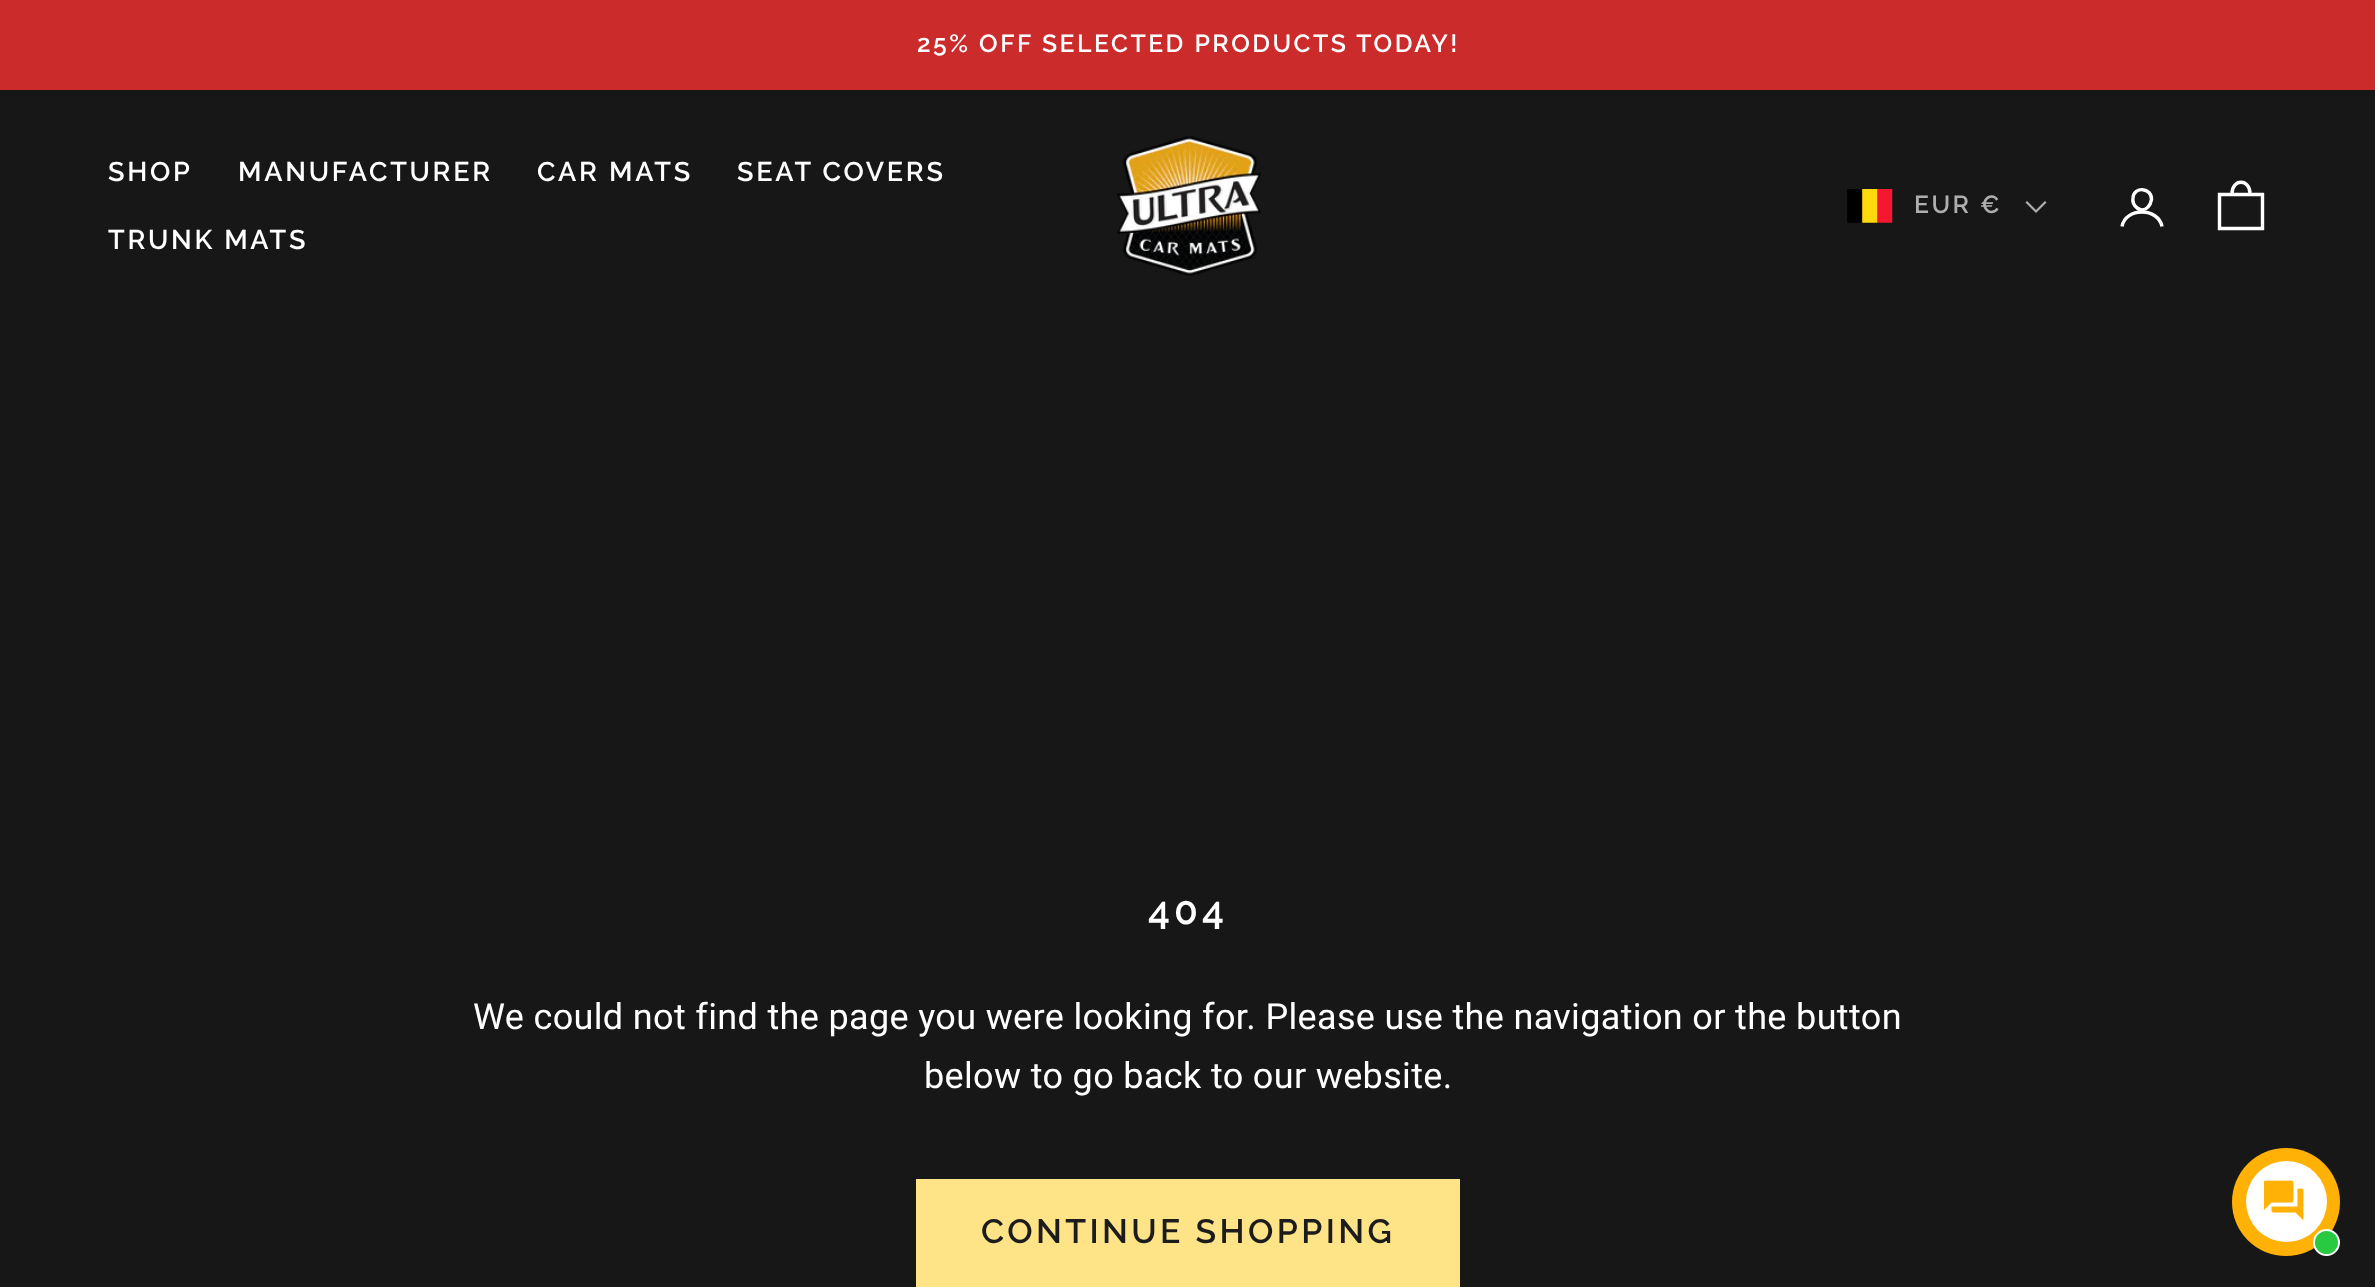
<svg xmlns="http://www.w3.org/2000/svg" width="2375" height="1287">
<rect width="100%" height="100%" fill="#171717"/>
<rect width="2375" height="90" fill="#cb2b2b"/>
<text x="917" y="52" style="font-family:Raleway;font-size:24.75px;font-weight:600;letter-spacing:2.5px;fill:#fff">25% OFF SELECTED PRODUCTS TODAY!</text>
<text x="108" y="181" style="font-family:Raleway;font-size:27px;font-weight:600;letter-spacing:2.75px;fill:#fff">SHOP</text>
<text x="238" y="181" style="font-family:Raleway;font-size:27px;font-weight:600;letter-spacing:2.75px;fill:#fff">MANUFACTURER</text>
<text x="537" y="181" style="font-family:Raleway;font-size:27px;font-weight:600;letter-spacing:2.75px;fill:#fff">CAR MATS</text>
<text x="737" y="181" style="font-family:Raleway;font-size:27px;font-weight:600;letter-spacing:2.75px;fill:#fff">SEAT COVERS</text>
<text x="108" y="249" style="font-family:Raleway;font-size:27px;font-weight:600;letter-spacing:2.75px;fill:#fff">TRUNK MATS</text>
<image x="1117" y="136" width="144" height="140" href="media/1.png"/>
<image x="1847" y="189" width="46" height="34" href="media/2.png"/>
<text x="1914" y="213" style="font-family:Raleway;font-size:24.75px;font-weight:600;letter-spacing:2.5px;fill:#aeaeae">EUR €</text>
<path d="M2027 202.5l9 9l9-9" fill="none" stroke="#aeaeae" stroke-width="2.2" stroke-linecap="square"/>
<path d="M2151.5 199.5c-.5 3-1.5 5.5-3.5 7.5c-6.5 7.5-16.5-1-15-9.5c1-11.5 19-10 18.5 2z" fill="none" stroke="#fff" stroke-width="3.4" stroke-linecap="round" stroke-linejoin="round"/>
<path d="M2122 226.5c3.5-19.5 36.5-19 40 0" fill="none" stroke="#fff" stroke-width="3.4"/>
<path d="M2262.5 228.5v-34h-43v34zm-30.5-35c0-15 18-15 18 0" fill="none" stroke="#fff" stroke-width="3.4"/>
<text x="1148" y="924" style="font-family:Raleway;font-size:39px;font-weight:600;letter-spacing:4px;fill:#fff">404</text>
<text x="473" y="1029" style="font-family:Roboto;font-size:36px;letter-spacing:0.35px;fill:#fff">We could not find the page you were looking for. Please use the navigation or the button</text>
<text x="924" y="1088" style="font-family:Roboto;font-size:36px;letter-spacing:0.35px;fill:#fff">below to go back to our website.</text>
<rect x="917" y="1180" width="542" height="106" fill="#fee487" stroke="#fee487" stroke-width="2"/>
<text x="981" y="1243" style="font-family:Raleway;font-size:33.75px;font-weight:600;letter-spacing:3.4px;fill:#1c1c1c">CONTINUE SHOPPING</text>
<circle cx="2286" cy="1202" r="54" fill="#ffb106"/>
<circle cx="2286.5" cy="1201.5" r="40.5" fill="#fff"/>
<image x="2264" y="1180" width="40" height="41" href="media/3.png"/>
<circle cx="2326.5" cy="1242.5" r="12.5" fill="#27ca40" stroke="#fff" stroke-width="2"/>
</svg>
